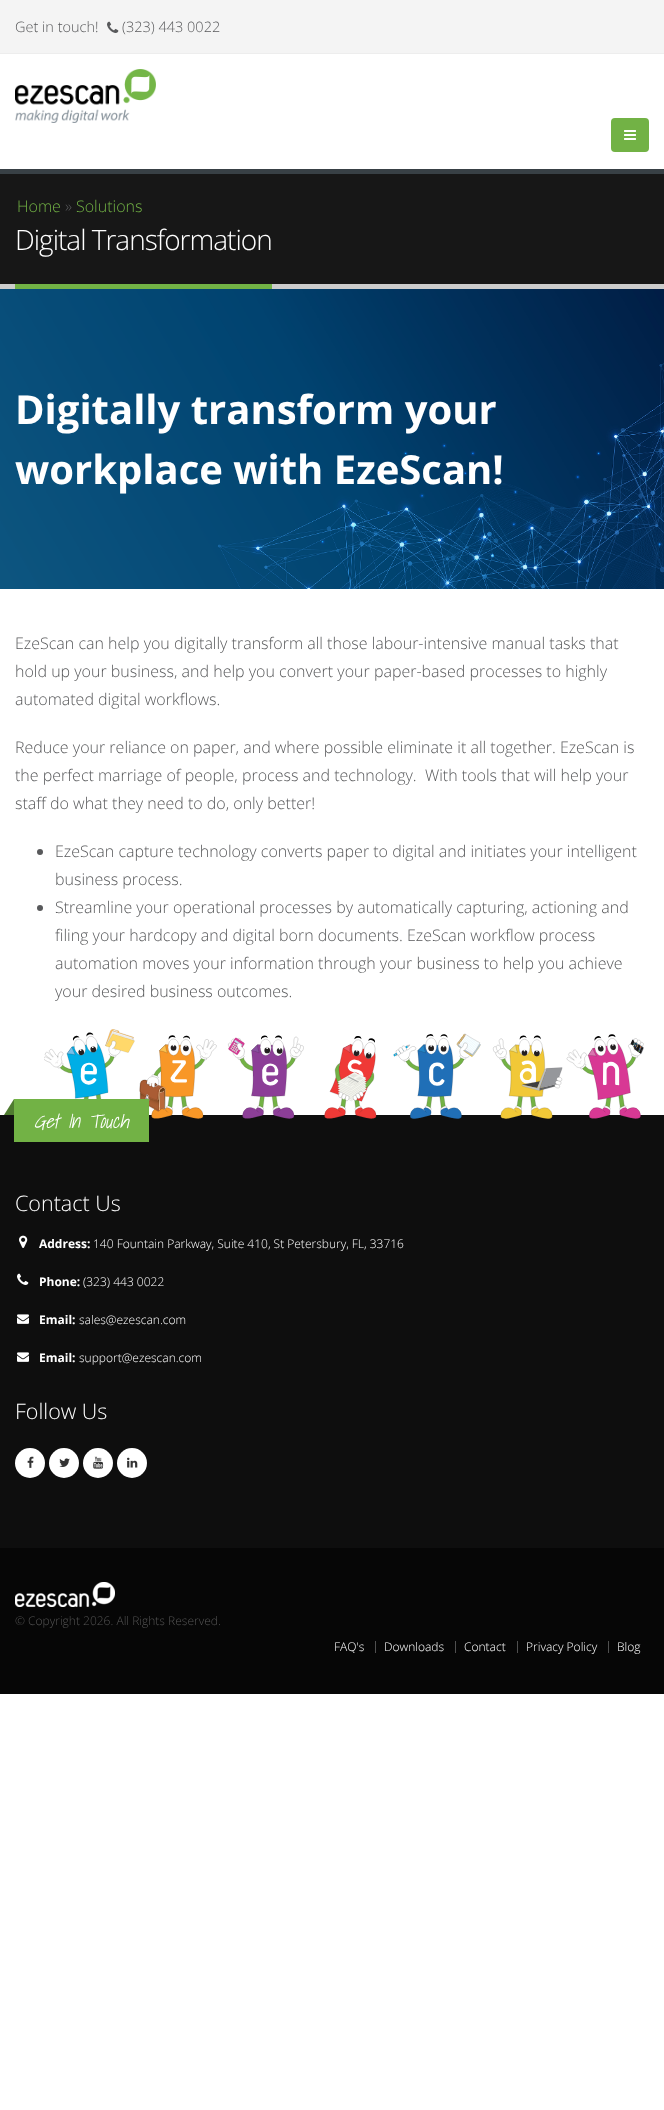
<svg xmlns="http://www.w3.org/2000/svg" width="664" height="2110">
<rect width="100%" height="100%" fill="#fff"/>
<rect width="664" height="53" fill="#f4f4f4"/>
<rect y="53" width="664" height="1" fill="#ededed"/>
<text x="15" y="32" style="font-family:Open Sans;font-size:14.5px;font-weight:300;fill:#58595b">Get in touch!</text>
<image x="107" y="21" width="12" height="12" href="media/1.png"/>
<text x="122" y="32" style="font-family:Open Sans;font-size:14.5px;font-weight:300;fill:#58595b">(323) 443 0022</text>
<image x="15" y="69" width="141" height="54" href="media/2.png"/>
<rect x="611" y="118" width="38" height="34" rx="4" fill="#72b245"/>
<image x="624" y="130" width="12" height="10" href="media/3.png"/>
<rect y="174" width="664" height="110" fill="#171717"/>
<rect y="169" width="664" height="5" fill="#384045"/>
<rect y="284" width="664" height="5" fill="#ccc"/>
<text x="17" y="212" style="font-family:Open Sans;font-size:16px;font-weight:300;fill:#72b245">Home</text>
<text x="65" y="212" style="font-family:Open Sans;font-size:16px;font-weight:300;fill:#58595b">»</text>
<text x="76" y="212" style="font-family:Open Sans;font-size:16px;font-weight:300;fill:#72b245">Solutions</text>
<rect x="15" y="284" width="257" height="5" fill="#72b245"/>
<text x="15" y="250" style="font-family:Open Sans;font-size:28px;font-weight:300;letter-spacing:-1px;fill:#fff">Digital Transformation</text>
<image x="0" y="289" width="664" height="300" href="media/4.png"/>
<text x="15" y="424" style="font-family:Open Sans;font-size:40px;font-weight:bold;fill:#fff">Digitally transform your</text>
<text x="15" y="484" style="font-family:Open Sans;font-size:40px;font-weight:bold;fill:#fff">workplace with EzeScan!</text>
<text x="15" y="649" style="font-family:Open Sans;font-size:16px;font-weight:300;fill:#58595b">EzeScan can help you digitally transform all those labour-intensive manual tasks that</text>
<text x="15" y="677" style="font-family:Open Sans;font-size:16px;font-weight:300;fill:#58595b">hold up your business, and help you convert your paper-based processes to highly</text>
<text x="15" y="705" style="font-family:Open Sans;font-size:16px;font-weight:300;fill:#58595b">automated digital workflows.</text>
<text x="15" y="753" style="font-family:Open Sans;font-size:16px;font-weight:300;fill:#58595b">Reduce your reliance on paper, and where possible eliminate it all together. EzeScan is</text>
<text x="15" y="781" style="font-family:Open Sans;font-size:16px;font-weight:300;fill:#58595b" xml:space="preserve">the perfect marriage of people, process and technology.  With tools that will help your</text>
<text x="15" y="809" style="font-family:Open Sans;font-size:16px;font-weight:300;fill:#58595b">staff do what they need to do, only better!</text>
<circle cx="40" cy="852" r="3" fill="#58595b"/>
<text x="55" y="857" style="font-family:Open Sans;font-size:16px;font-weight:300;fill:#58595b">EzeScan capture technology converts paper to digital and initiates your intelligent</text>
<text x="55" y="885" style="font-family:Open Sans;font-size:16px;font-weight:300;fill:#58595b">business process.</text>
<circle cx="40" cy="908" r="3" fill="#58595b"/>
<text x="55" y="913" style="font-family:Open Sans;font-size:16px;font-weight:300;fill:#58595b">Streamline your operational processes by automatically capturing, actioning and</text>
<text x="55" y="941" style="font-family:Open Sans;font-size:16px;font-weight:300;fill:#58595b">filing your hardcopy and digital born documents. EzeScan workflow process</text>
<text x="55" y="969" style="font-family:Open Sans;font-size:16px;font-weight:300;fill:#58595b">automation moves your information through your business to help you achieve</text>
<text x="55" y="997" style="font-family:Open Sans;font-size:16px;font-weight:300;fill:#58595b">your desired business outcomes.</text>
<rect y="1115" width="664" height="433" fill="#0e0e0e"/>
<image x="44" y="1029" width="600" height="90" href="media/5.png"/>
<rect x="14" y="1099" width="135" height="43" fill="#72b245"/>
<path d="M14 1099v16h-10z" fill="#4f7b30"/>
<text x="34" y="1128" style="font-family:Shadows Into Light;font-size:19px;font-weight:300;font-style:italic;fill:#fff">Get In Touch</text>
<text x="15" y="1211" style="font-family:Open Sans;font-size:21.5px;font-weight:300;fill:#fff">Contact Us</text>
<image x="19" y="1235" width="9" height="13" href="media/6.png"/>
<text x="39" y="1248" style="font-family:Open Sans;font-size:12px;font-weight:bold;fill:#fff">Address:</text>
<text x="93" y="1248" style="font-family:Open Sans;font-size:12px;font-weight:300;fill:#fff">140 Fountain Parkway, Suite 410, St Petersbury, FL, 33716</text>
<image x="17" y="1273" width="12" height="12" href="media/7.png"/>
<text x="39" y="1286" style="font-family:Open Sans;font-size:12px;font-weight:bold;fill:#fff">Phone:</text>
<text x="83" y="1286" style="font-family:Open Sans;font-size:12px;font-weight:300;fill:#fff">(323) 443 0022</text>
<image x="17" y="1314" width="12" height="10" href="media/8.png"/>
<text x="39" y="1324" style="font-family:Open Sans;font-size:12px;font-weight:bold;fill:#fff">Email:</text>
<text x="79" y="1324" style="font-family:Open Sans;font-size:12px;font-weight:300;fill:#fff">sales@ezescan.com</text>
<image x="17" y="1352" width="12" height="10" href="media/8.png"/>
<text x="39" y="1362" style="font-family:Open Sans;font-size:12px;font-weight:bold;fill:#fff">Email:</text>
<text x="79" y="1362" style="font-family:Open Sans;font-size:12px;font-weight:300;fill:#fff">support@ezescan.com</text>
<text x="15" y="1419" style="font-family:Open Sans;font-size:21.5px;font-weight:300;fill:#fff">Follow Us</text>
<circle cx="30" cy="1463" r="15" fill="#fff"/>
<image x="27" y="1456" width="7" height="12" href="media/9.png"/>
<circle cx="64" cy="1463" r="15" fill="#fff"/>
<image x="59" y="1458" width="11" height="9" href="media/10.png"/>
<circle cx="98" cy="1463" r="15" fill="#fff"/>
<image x="93" y="1456" width="11" height="13" href="media/11.png"/>
<circle cx="132" cy="1463" r="15" fill="#fff"/>
<image x="127" y="1457" width="11" height="11" href="media/12.png"/>
<rect y="1548" width="664" height="146" fill="#060606"/>
<image x="15" y="1582" width="100" height="25" href="media/13.png"/>
<text x="15" y="1625" style="font-family:Open Sans;font-size:12px;font-weight:300;fill:#555">© Copyright 2026. All Rights Reserved.</text>
<text x="334" y="1651" style="font-family:Open Sans;font-size:12px;font-weight:300;fill:#fff">FAQ's</text>
<rect x="375" y="1641" width="1" height="12" fill="#505050"/>
<text x="384" y="1651" style="font-family:Open Sans;font-size:12px;font-weight:300;fill:#fff">Downloads</text>
<rect x="455" y="1641" width="1" height="12" fill="#505050"/>
<text x="464" y="1651" style="font-family:Open Sans;font-size:12px;font-weight:300;fill:#fff">Contact</text>
<rect x="517" y="1641" width="1" height="12" fill="#505050"/>
<text x="526" y="1651" style="font-family:Open Sans;font-size:12px;font-weight:300;fill:#fff">Privacy Policy</text>
<rect x="608" y="1641" width="1" height="12" fill="#505050"/>
<text x="617" y="1651" style="font-family:Open Sans;font-size:12px;font-weight:300;fill:#fff">Blog</text>
</svg>
